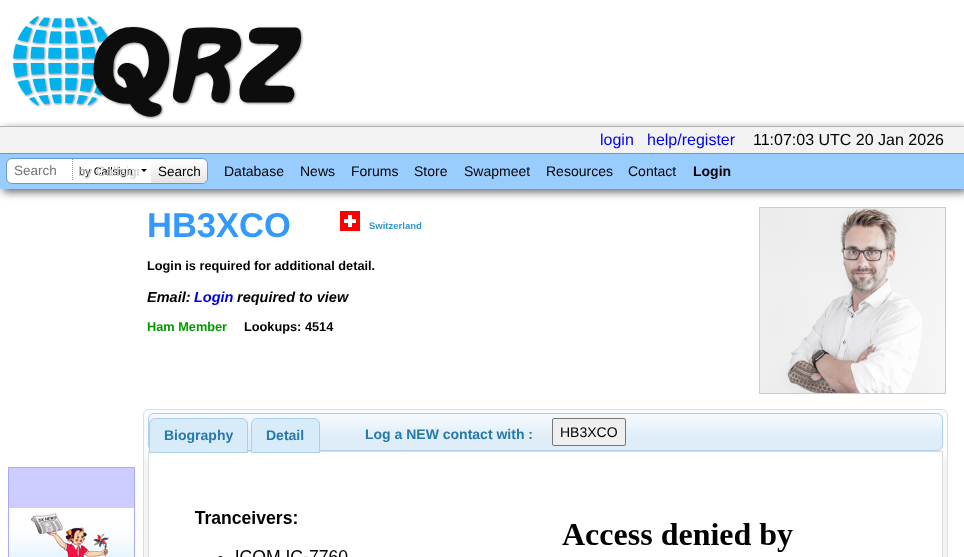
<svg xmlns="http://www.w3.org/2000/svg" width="964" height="557">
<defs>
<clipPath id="clip1"><rect x="78" y="163" width="61" height="17"/></clipPath>
<linearGradient id="g1" gradientUnits="userSpaceOnUse" x1="179" y1="159" x2="179" y2="183"><stop offset="0" stop-color="#fff"/><stop offset="1" stop-color="#e5e5e5"/></linearGradient>
</defs>
<rect width="100%" height="100%" fill="#fff"/>
<rect x="3" y="129" width="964" height="63" fill="#666" filter="blur(4px)"/>
<image x="12" y="15" width="292" height="105" href="media/1.png"/>
<rect y="127" width="964" height="26" fill="#f3f3f3"/>
<rect y="126" width="964" height="1" fill="#b3b3b3"/>
<text x="600" y="145" style="font-family:Liberation Sans;font-size:16px;fill:#00e">login</text>
<text x="647" y="145" style="font-family:Liberation Sans;font-size:16px;fill:#00e">help/register</text>
<text x="753" y="145" style="font-family:Liberation Sans;font-size:16px;fill:#000">11:07:03 UTC 20 Jan 2026</text>
<rect y="154" width="964" height="35" fill="#9cf"/>
<rect y="153" width="964" height="1" fill="#69c"/>
<rect x="6.5" y="158.5" width="201" height="25" rx="5.5" fill="#fff" stroke="#69c"/>
<path d="M72.5 159v22" fill="none" stroke="#69c" stroke-dasharray="1 1"/>
<text x="14" y="175" style="font-family:Liberation Sans;font-size:13.5px;fill:#757575">Search</text>
<text x="79" y="175" style="font-family:Liberation Sans;font-size:11px;fill:#000">by Callsign</text>
<g clip-path="url(#clip1)">
<text x="78" y="176" style="font-family:Liberation Sans;font-size:13.5px;fill:#c7c7c7">by Callsign</text>
</g>
<path d="M141 169h6l-3 3z" fill="#000"/>
<path d="M151 159h50c3.5 0 6 2.5 6 6v12c0 3.5-2.5 6-6 6h-50z" fill="url(#g1)"/>
<text x="158" y="176" style="font-family:Liberation Sans;font-size:13.5px;fill:#000">Search</text>
<text x="224" y="176" style="font-family:Liberation Sans;font-size:14px;fill:#000">Database</text>
<text x="300" y="176" style="font-family:Liberation Sans;font-size:14px;fill:#000">News</text>
<text x="351" y="176" style="font-family:Liberation Sans;font-size:14px;fill:#000">Forums</text>
<text x="414" y="176" style="font-family:Liberation Sans;font-size:14px;fill:#000">Store</text>
<text x="464" y="176" style="font-family:Liberation Sans;font-size:14px;fill:#000">Swapmeet</text>
<text x="546" y="176" style="font-family:Liberation Sans;font-size:14px;fill:#000">Resources</text>
<text x="628" y="176" style="font-family:Liberation Sans;font-size:14px;fill:#000">Contact</text>
<text x="693" y="176" style="font-family:Liberation Sans;font-size:14px;font-weight:bold;fill:#000">Login</text>
<text x="147" y="237" style="font-family:Liberation Sans;font-size:34.5px;font-weight:bold;fill:#39f">HB3XCO</text>
<image x="340" y="211" width="20" height="20" href="media/2.png"/>
<text x="369" y="229" style="font-family:Liberation Sans;font-size:9.5px;font-weight:bold;fill:#39c">Switzerland</text>
<text x="147" y="270" style="font-family:Liberation Sans;font-size:12.75px;font-weight:bold;fill:#000">Login is required for additional detail.</text>
<text x="147" y="302" style="font-family:Liberation Sans;font-size:14.5px;font-weight:bold;font-style:italic;fill:#000">Email:</text>
<text x="194" y="302" style="font-family:Liberation Sans;font-size:14.5px;font-weight:bold;font-style:italic;fill:#00e">Login</text>
<text x="237" y="302" style="font-family:Liberation Sans;font-size:14.5px;font-weight:bold;font-style:italic;fill:#000">required to view</text>
<text x="147" y="331" style="font-family:Liberation Sans;font-size:12.75px;font-weight:bold;fill:#090">Ham Member</text>
<text x="244" y="331" style="font-family:Liberation Sans;font-size:12.75px;font-weight:bold;fill:#000">Lookups: 4514</text>
<rect x="759.5" y="207.5" width="186" height="186" fill="none" stroke="#ccc"/>
<image x="760" y="208" width="185" height="185" href="media/3.png"/>
<rect x="143" y="409" width="805" height="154" rx="6" fill="#f2f5f7"/>
<image x="143" y="410" width="805" height="49" href="media/4.png"/>
<rect x="143.5" y="409.5" width="804" height="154" rx="5.5" fill="none" stroke="#ddd"/>
<image x="148" y="413" width="795" height="38" href="media/5.png"/>
<rect x="148.5" y="413.5" width="794" height="37" rx="5.5" fill="none" stroke="#aed0ea"/>
<rect x="148.5" y="451.5" width="794" height="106" fill="#fff" stroke="#ddd"/>
<path d="M155 418.5h87c3 0 5.5 2.5 5.5 5.5v28.5h-98v-28.5c0-3 2.5-5.5 5.5-5.5z" fill="#d7ebf9" stroke="#aed0ea"/>
<text x="164" y="440" style="font-family:Liberation Sans;font-size:14px;font-weight:bold;fill:#2779aa">Biography</text>
<path d="M257 418.5h57c3 0 5.5 2.5 5.5 5.5v28.5h-68v-28.5c0-3 2.5-5.5 5.5-5.5z" fill="#d7ebf9" stroke="#aed0ea"/>
<text x="266" y="440" style="font-family:Liberation Sans;font-size:14px;font-weight:bold;fill:#2779aa">Detail</text>
<text x="365" y="439" style="font-family:Liberation Sans;font-size:14px;font-weight:bold;fill:#2779aa">Log a NEW contact with :</text>
<rect x="552.5" y="418.5" width="73" height="27" rx="1.5" fill="#efefef" stroke="#767676"/>
<text x="560" y="437" style="font-family:Liberation Sans;font-size:14px;fill:#000">HB3XCO</text>
<image x="194" y="511" width="599" height="46" href="media/6.png"/>
<rect x="9" y="468" width="125" height="40" fill="#ccf"/>
<rect x="8.5" y="467.5" width="126" height="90" fill="none" stroke="#aaf"/>
<image x="9" y="508" width="125" height="49" href="media/7.png"/>
</svg>
